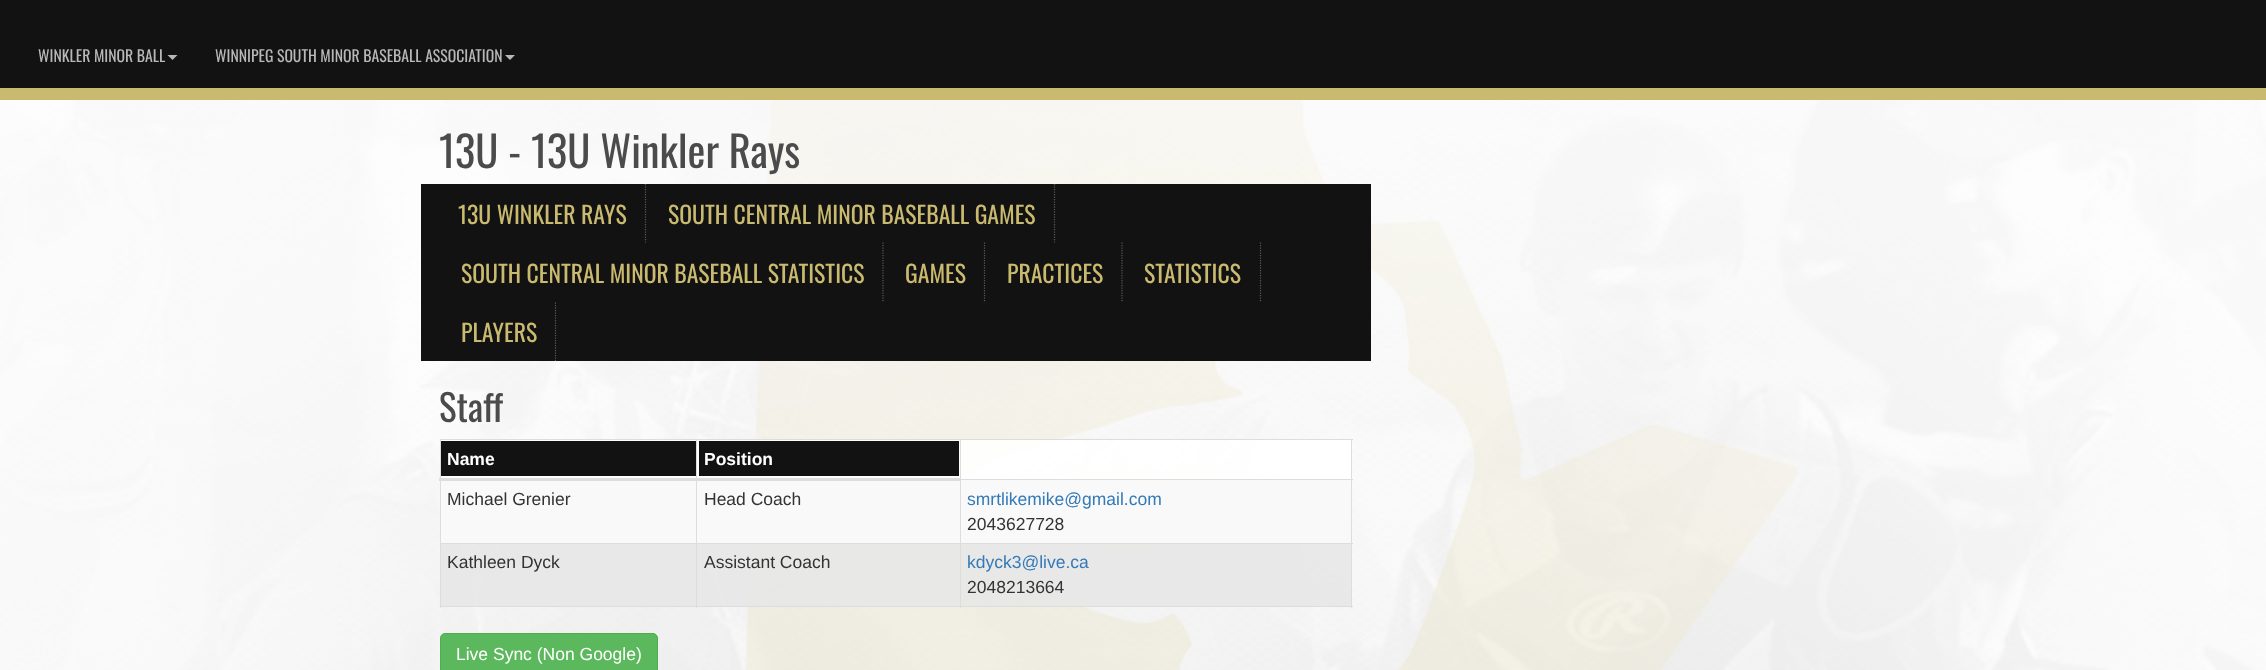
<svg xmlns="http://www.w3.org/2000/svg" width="2266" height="670">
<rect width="100%" height="100%" fill="#fff"/>
<rect width="2266" height="88" fill="#121212"/>
<text x="38" y="62" style="font-family:Oswald;font-size:15.75px;fill:#b8b8b8">WINKLER MINOR BALL</text>
<path d="M167.5 55h10l-5 5z" fill="#b8b8b8"/>
<text x="215" y="62" style="font-family:Oswald;font-size:15.75px;fill:#b8b8b8">WINNIPEG SOUTH MINOR BASEBALL ASSOCIATION</text>
<path d="M505 55h10l-5 5z" fill="#b8b8b8"/>
<rect y="88" width="2266" height="12" fill="#caba70"/>
<image x="0" y="100" width="2266" height="570" href="media/1.png"/>
<rect y="100" width="2266" height="570" fill="#ffffff99"/>
<text x="439" y="168" style="font-family:Oswald;font-size:42.5px;fill:#4b4b4b">13U -</text>
<text x="531" y="168" style="font-family:Oswald;font-size:42.5px;fill:#4b4b4b">13U Winkler Rays</text>
<rect x="421" y="184" width="950" height="177" fill="#121212"/>
<path d="M645.5 184v58.5" fill="none" stroke="#595959" stroke-width="1.2" stroke-dasharray="1.25 1.25"/>
<text x="458" y="224" style="font-family:Oswald;font-size:23.75px;fill:#caba70">13U WINKLER RAYS</text>
<path d="M1054.5 184v58.5" fill="none" stroke="#595959" stroke-width="1.2" stroke-dasharray="1.25 1.25"/>
<text x="668" y="224" style="font-family:Oswald;font-size:23.75px;fill:#caba70">SOUTH CENTRAL MINOR BASEBALL GAMES</text>
<path d="M883 242.5v60" fill="none" stroke="#595959" stroke-width="1.2" stroke-dasharray="1.25 1.25"/>
<text x="461" y="283" style="font-family:Oswald;font-size:23.75px;fill:#caba70">SOUTH CENTRAL MINOR BASEBALL STATISTICS</text>
<path d="M984.5 242.5v60" fill="none" stroke="#595959" stroke-width="1.2" stroke-dasharray="1.25 1.25"/>
<text x="905" y="283" style="font-family:Oswald;font-size:23.75px;fill:#caba70">GAMES</text>
<path d="M1122 242.5v60" fill="none" stroke="#595959" stroke-width="1.2" stroke-dasharray="1.25 1.25"/>
<text x="1007" y="283" style="font-family:Oswald;font-size:23.75px;fill:#caba70">PRACTICES</text>
<path d="M1260.5 242.5v60" fill="none" stroke="#595959" stroke-width="1.2" stroke-dasharray="1.25 1.25"/>
<text x="1144" y="283" style="font-family:Oswald;font-size:23.75px;fill:#caba70">STATISTICS</text>
<path d="M555.5 302.5v58.5" fill="none" stroke="#595959" stroke-width="1.2" stroke-dasharray="1.25 1.25"/>
<text x="461" y="342" style="font-family:Oswald;font-size:23.75px;fill:#caba70">PLAYERS</text>
<text x="439" y="422" style="font-family:Oswald;font-size:37px;fill:#4b4b4b">Staff</text>
<rect x="440" y="439" width="913" height="1" fill="#ddd"/>
<rect x="1351" y="439" width="1" height="169" fill="#ddd"/>
<rect x="440" y="606" width="913" height="1" fill="#ddd"/>
<rect x="440" y="439" width="1" height="169" fill="#ddd"/>
<rect x="441" y="440" width="910" height="39" fill="#ffffffe6"/>
<rect x="441" y="441" width="255" height="35" fill="#121212"/>
<text x="447" y="465" style="font-family:Liberation Sans;font-size:17.5px;font-weight:bold;fill:#fff">Name</text>
<rect x="699" y="441" width="260" height="35" fill="#121212"/>
<rect x="441" y="480" width="909" height="63" fill="#f9f9f9"/>
<rect x="960" y="543" width="393" height="1" fill="#ddd"/>
<rect x="441" y="544" width="910" height="62" fill="#e7e7e7e6"/>
<rect x="960" y="543" width="1" height="65" fill="#ddd"/>
<rect x="696" y="543" width="265" height="1" fill="#ddd"/>
<rect x="696" y="543" width="1" height="65" fill="#ddd"/>
<rect x="440" y="543" width="258" height="1" fill="#ddd"/>
<rect x="696" y="439" width="1" height="105" fill="#ddd"/>
<rect x="960" y="479" width="393" height="1" fill="#ddd"/>
<rect x="960" y="439" width="1" height="105" fill="#ddd"/>
<rect x="439" y="478" width="522" height="3" fill="#ddd"/>
<text x="704" y="465" style="font-family:Liberation Sans;font-size:17.5px;font-weight:bold;fill:#fff">Position</text>
<text x="447" y="505" style="font-family:Liberation Sans;font-size:17.5px;fill:#333">Michael Grenier</text>
<text x="704" y="505" style="font-family:Liberation Sans;font-size:17.5px;fill:#333">Head Coach</text>
<text x="967" y="505" style="font-family:Liberation Sans;font-size:17.5px;fill:#337ab7">smrtlikemike@gmail.com</text>
<text x="967" y="530" style="font-family:Liberation Sans;font-size:17.5px;fill:#333">2043627728</text>
<text x="447" y="568" style="font-family:Liberation Sans;font-size:17.5px;fill:#333">Kathleen Dyck</text>
<text x="704" y="568" style="font-family:Liberation Sans;font-size:17.5px;fill:#333">Assistant Coach</text>
<text x="967" y="568" style="font-family:Liberation Sans;font-size:17.5px;fill:#337ab7">kdyck3@live.ca</text>
<text x="967" y="593" style="font-family:Liberation Sans;font-size:17.5px;fill:#333">2048213664</text>
<rect x="440.5" y="633.5" width="217" height="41" rx="4.5" fill="#5cb85c" stroke="#4cae4c"/>
<text x="456" y="660" style="font-family:Liberation Sans;font-size:17.5px;fill:#fff">Live Sync (Non Google)</text>
</svg>
